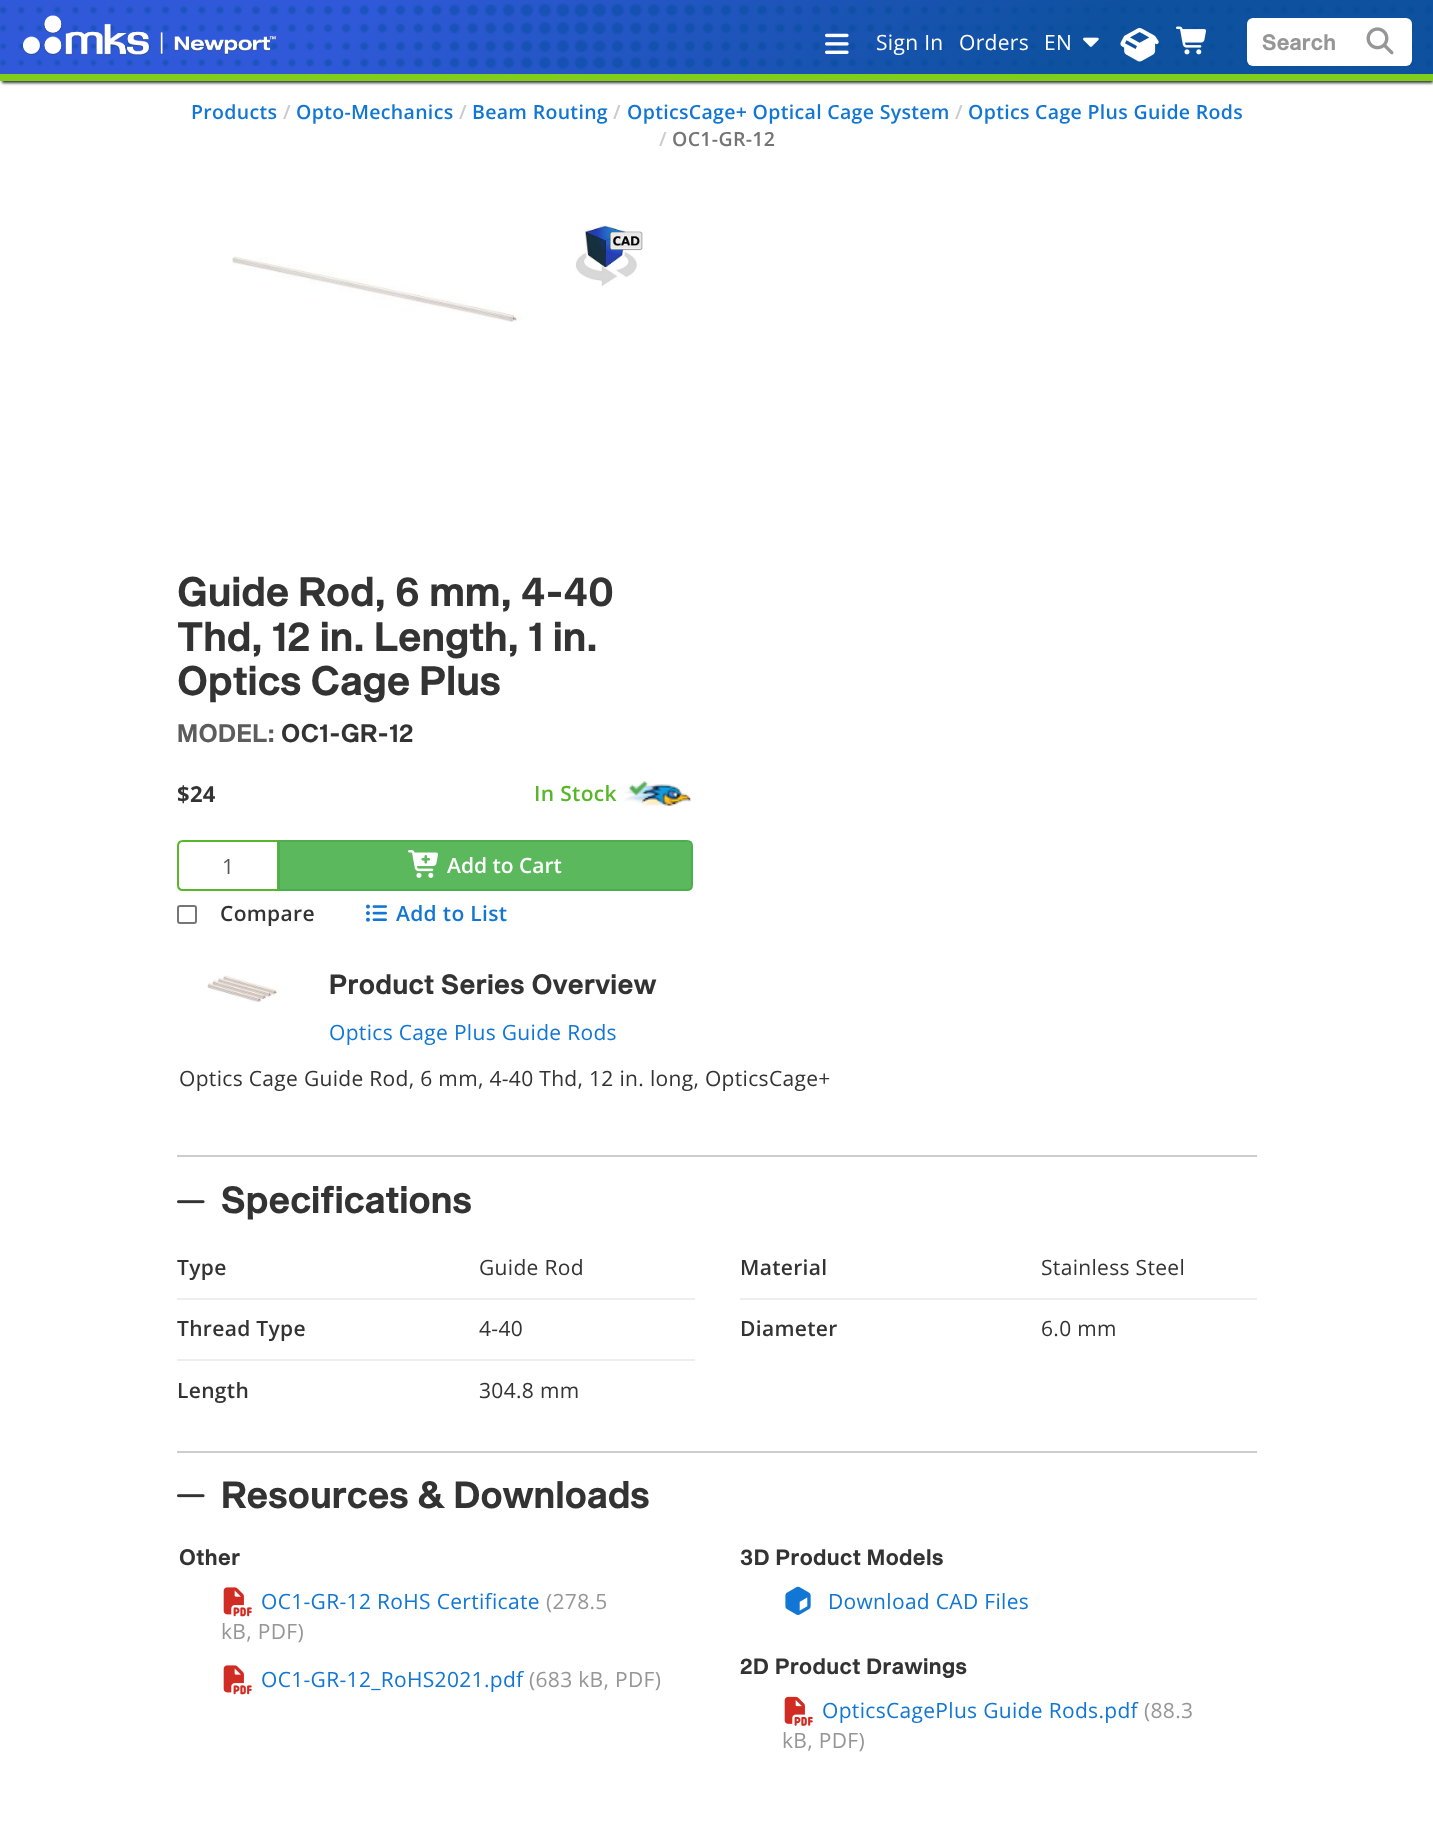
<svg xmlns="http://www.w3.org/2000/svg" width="1433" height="1842">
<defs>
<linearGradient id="g1" gradientUnits="userSpaceOnUse" x1="340" y1="-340" x2="1094" y2="414"><stop offset="0.25" stop-color="#2f59d8"/><stop offset="0.75" stop-color="#0e519f"/></linearGradient>
</defs>
<rect width="100%" height="100%" fill="#fff"/>
<rect x="2" y="5" width="1431" height="78" fill="#333" filter="blur(1.5px)"/>
<rect width="1433" height="74" fill="url(#g1)"/>
<rect y="74" width="1433" height="7" fill="#80ce1a"/>
<image x="0" y="3" width="1432" height="66" href="media/1.png"/>
<image x="22" y="15" width="254" height="41" href="media/2.png"/>
<image x="825" y="33" width="24" height="21" href="media/3.png"/>
<text x="876" y="50" style="font-family:Open Sans;font-size:21px;letter-spacing:0.32px;fill:#fff">Sign In</text>
<text x="959" y="50" style="font-family:Open Sans;font-size:21px;letter-spacing:0.32px;fill:#fff">Orders</text>
<text x="1044" y="50" style="font-family:Open Sans;font-size:21px;letter-spacing:0.32px;fill:#fff">EN</text>
<image x="1083" y="37" width="16" height="10" href="media/4.png"/>
<image x="1120" y="27" width="39" height="35" href="media/5.png"/>
<image x="1176" y="26" width="30" height="29" href="media/6.png"/>
<rect x="1247" y="18" width="165" height="48" rx="6" fill="#fff"/>
<text x="1262" y="50" style="font-family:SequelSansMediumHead;font-size:21px;font-weight:bold;letter-spacing:0.75px;fill:#969696">Search</text>
<image x="1366" y="27" width="28" height="28" href="media/7.png"/>
<text x="191" y="119" style="font-family:Open Sans;font-size:19.5px;font-weight:600;letter-spacing:0.32px;fill:#1176d4">Products</text>
<text x="283" y="119" style="font-family:Open Sans;font-size:19.5px;font-weight:600;letter-spacing:0.32px;fill:#ccc">/</text>
<text x="296" y="119" style="font-family:Open Sans;font-size:19.5px;font-weight:600;letter-spacing:0.32px;fill:#1176d4">Opto-Mechanics</text>
<text x="459" y="119" style="font-family:Open Sans;font-size:19.5px;font-weight:600;letter-spacing:0.32px;fill:#ccc">/</text>
<text x="472" y="119" style="font-family:Open Sans;font-size:19.5px;font-weight:600;letter-spacing:0.32px;fill:#1176d4">Beam Routing</text>
<text x="613" y="119" style="font-family:Open Sans;font-size:19.5px;font-weight:600;letter-spacing:0.32px;fill:#ccc">/</text>
<text x="627" y="119" style="font-family:Open Sans;font-size:19.5px;font-weight:600;letter-spacing:0.32px;fill:#1176d4">OpticsCage+ Optical Cage System</text>
<text x="955" y="119" style="font-family:Open Sans;font-size:19.5px;font-weight:600;letter-spacing:0.32px;fill:#ccc">/</text>
<text x="968" y="119" style="font-family:Open Sans;font-size:19.5px;font-weight:600;letter-spacing:0.32px;fill:#1176d4">Optics Cage Plus Guide Rods</text>
<text x="659" y="146" style="font-family:Open Sans;font-size:19.5px;font-weight:600;letter-spacing:0.32px;fill:#ccc">/</text>
<text x="672" y="146" style="font-family:Open Sans;font-size:19.5px;font-weight:600;letter-spacing:0.32px;fill:#747474">OC1-GR-12</text>
<image x="232" y="256" width="290" height="66" href="media/8.png"/>
<image x="575" y="225" width="68" height="61" href="media/9.png"/>
<text x="177" y="606" style="font-family:SequelSansMediumHead;font-size:38.8px;font-weight:bold;letter-spacing:1.05px;fill:#333">Guide Rod, 6 mm, 4-40</text>
<text x="177" y="651" style="font-family:SequelSansMediumHead;font-size:38.8px;font-weight:bold;letter-spacing:1.05px;fill:#333">Thd, 12 in. Length, 1 in.</text>
<text x="177" y="695" style="font-family:SequelSansMediumHead;font-size:38.8px;font-weight:bold;letter-spacing:1.05px;fill:#333">Optics Cage Plus</text>
<text x="177" y="742" style="font-family:SequelSansMediumHead;font-size:24px;font-weight:bold;letter-spacing:1.05px;fill:#5c5c5c">MODEL:</text>
<text x="281" y="742" style="font-family:SequelSansMediumHead;font-size:24px;font-weight:bold;letter-spacing:1.05px;fill:#333">OC1-GR-12</text>
<text x="177" y="802" style="font-family:Open Sans;font-size:22px;font-weight:bold;letter-spacing:0.32px;fill:#333">$24</text>
<text x="534" y="801" style="font-family:Open Sans;font-size:21px;font-weight:600;letter-spacing:0.32px;fill:#57b729">In Stock</text>
<image x="624" y="781" width="68" height="26" href="media/10.png"/>
<path d="M183 841h95v49h-95c-3 0-5-2-5-5v-39c0-3 2-5 5-5z" fill="none" stroke="#57b729" stroke-width="2"/>
<text x="222" y="874" style="font-family:Open Sans;font-size:21px;fill:#555">1</text>
<path d="M279 841h408c3 0 5 2 5 5v39c0 3-2 5-5 5h-408z" fill="#5cb85c" stroke="#4cae4c" stroke-width="2"/>
<image x="408" y="850" width="30" height="28" href="media/11.png"/>
<text x="447" y="873" style="font-family:Open Sans;font-size:21px;font-weight:600;fill:#fff">Add to Cart</text>
<rect x="178" y="906" width="18" height="17" rx="2" fill="none" stroke="#767676" stroke-width="2"/>
<text x="220" y="921" style="font-family:Open Sans;font-size:21px;font-weight:600;letter-spacing:0.32px;fill:#333">Compare</text>
<image x="366" y="904" width="21" height="18" href="media/12.png"/>
<text x="396" y="921" style="font-family:Open Sans;font-size:21px;font-weight:600;letter-spacing:0.32px;fill:#1176d4">Add to List</text>
<image x="207" y="975" width="70" height="28" href="media/13.png"/>
<text x="329" y="994" style="font-family:SequelSansMediumHead;font-size:26.25px;font-weight:bold;letter-spacing:1.05px;fill:#333">Product Series Overview</text>
<text x="329" y="1040" style="font-family:Open Sans;font-size:21px;letter-spacing:0.32px;fill:#1176d4">Optics Cage Plus Guide Rods</text>
<text x="179" y="1086" style="font-family:Open Sans;font-size:21px;letter-spacing:0.32px;fill:#333">Optics Cage Guide Rod, 6 mm, 4-40 Thd, 12 in. long, OpticsCage+</text>
<rect x="177" y="1155" width="1080" height="2" fill="#ccc"/>
<image x="177" y="1200" width="28" height="4" href="media/14.png"/>
<text x="221" y="1213" style="font-family:SequelSansMediumHead;font-size:35.75px;font-weight:bold;letter-spacing:1.05px;fill:#333">Specifications</text>
<rect x="177" y="1298" width="518" height="2" fill="#eee"/>
<text x="177" y="1275" style="font-family:Open Sans;font-size:21px;font-weight:600;letter-spacing:0.32px;fill:#333">Type</text>
<text x="479" y="1275" style="font-family:Open Sans;font-size:21px;letter-spacing:0.32px;fill:#333">Guide Rod</text>
<rect x="177" y="1359" width="518" height="2" fill="#eee"/>
<text x="177" y="1336" style="font-family:Open Sans;font-size:21px;font-weight:600;letter-spacing:0.32px;fill:#333">Thread Type</text>
<text x="479" y="1336" style="font-family:Open Sans;font-size:21px;letter-spacing:0.32px;fill:#333">4-40</text>
<text x="177" y="1398" style="font-family:Open Sans;font-size:21px;font-weight:600;letter-spacing:0.32px;fill:#333">Length</text>
<text x="479" y="1398" style="font-family:Open Sans;font-size:21px;letter-spacing:0.32px;fill:#333">304.8 mm</text>
<rect x="740" y="1298" width="517" height="2" fill="#eee"/>
<text x="740" y="1275" style="font-family:Open Sans;font-size:21px;font-weight:600;letter-spacing:0.32px;fill:#333">Material</text>
<text x="1041" y="1275" style="font-family:Open Sans;font-size:21px;letter-spacing:0.32px;fill:#333">Stainless Steel</text>
<text x="740" y="1336" style="font-family:Open Sans;font-size:21px;font-weight:600;letter-spacing:0.32px;fill:#333">Diameter</text>
<text x="1041" y="1336" style="font-family:Open Sans;font-size:21px;letter-spacing:0.32px;fill:#333">6.0 mm</text>
<rect x="177" y="1451" width="1080" height="2" fill="#ccc"/>
<image x="177" y="1494" width="28" height="4" href="media/14.png"/>
<text x="221" y="1508" style="font-family:SequelSansMediumHead;font-size:35.75px;font-weight:bold;letter-spacing:1.05px;fill:#333">Resources &amp; Downloads</text>
<text x="179" y="1565" style="font-family:SequelSansMediumHead;font-size:21px;font-weight:bold;letter-spacing:1.05px;fill:#333">Other</text>
<image x="223" y="1587" width="29" height="30" href="media/15.png"/>
<text x="261" y="1609" style="font-family:Open Sans;font-size:21px;letter-spacing:0.32px;fill:#1176d4">OC1-GR-12 RoHS Certificate</text>
<text x="546" y="1609" style="font-family:Open Sans;font-size:21px;letter-spacing:0.32px;fill:#969696">(278.5</text>
<text x="221" y="1639" style="font-family:Open Sans;font-size:21px;letter-spacing:0.32px;fill:#969696">kB, PDF)</text>
<image x="223" y="1665" width="29" height="30" href="media/15.png"/>
<text x="261" y="1687" style="font-family:Open Sans;font-size:21px;letter-spacing:0.32px;fill:#1176d4">OC1-GR-12_RoHS2021.pdf</text>
<text x="529" y="1687" style="font-family:Open Sans;font-size:21px;letter-spacing:0.32px;fill:#969696">(683 kB, PDF)</text>
<text x="740" y="1565" style="font-family:SequelSansMediumHead;font-size:21px;font-weight:bold;letter-spacing:1.05px;fill:#333">3D Product Models</text>
<image x="785" y="1586" width="26" height="29" href="media/16.png"/>
<text x="828" y="1609" style="font-family:Open Sans;font-size:21px;letter-spacing:0.32px;fill:#1176d4">Download CAD Files</text>
<text x="740" y="1674" style="font-family:SequelSansMediumHead;font-size:21px;font-weight:bold;letter-spacing:1.05px;fill:#333">2D Product Drawings</text>
<image x="784" y="1696" width="29" height="30" href="media/17.png"/>
<text x="822" y="1718" style="font-family:Open Sans;font-size:21px;letter-spacing:0.32px;fill:#1176d4">OpticsCagePlus Guide Rods.pdf</text>
<text x="1144" y="1718" style="font-family:Open Sans;font-size:21px;letter-spacing:0.32px;fill:#969696">(88.3</text>
<text x="782" y="1748" style="font-family:Open Sans;font-size:21px;letter-spacing:0.32px;fill:#969696">kB, PDF)</text>
</svg>
